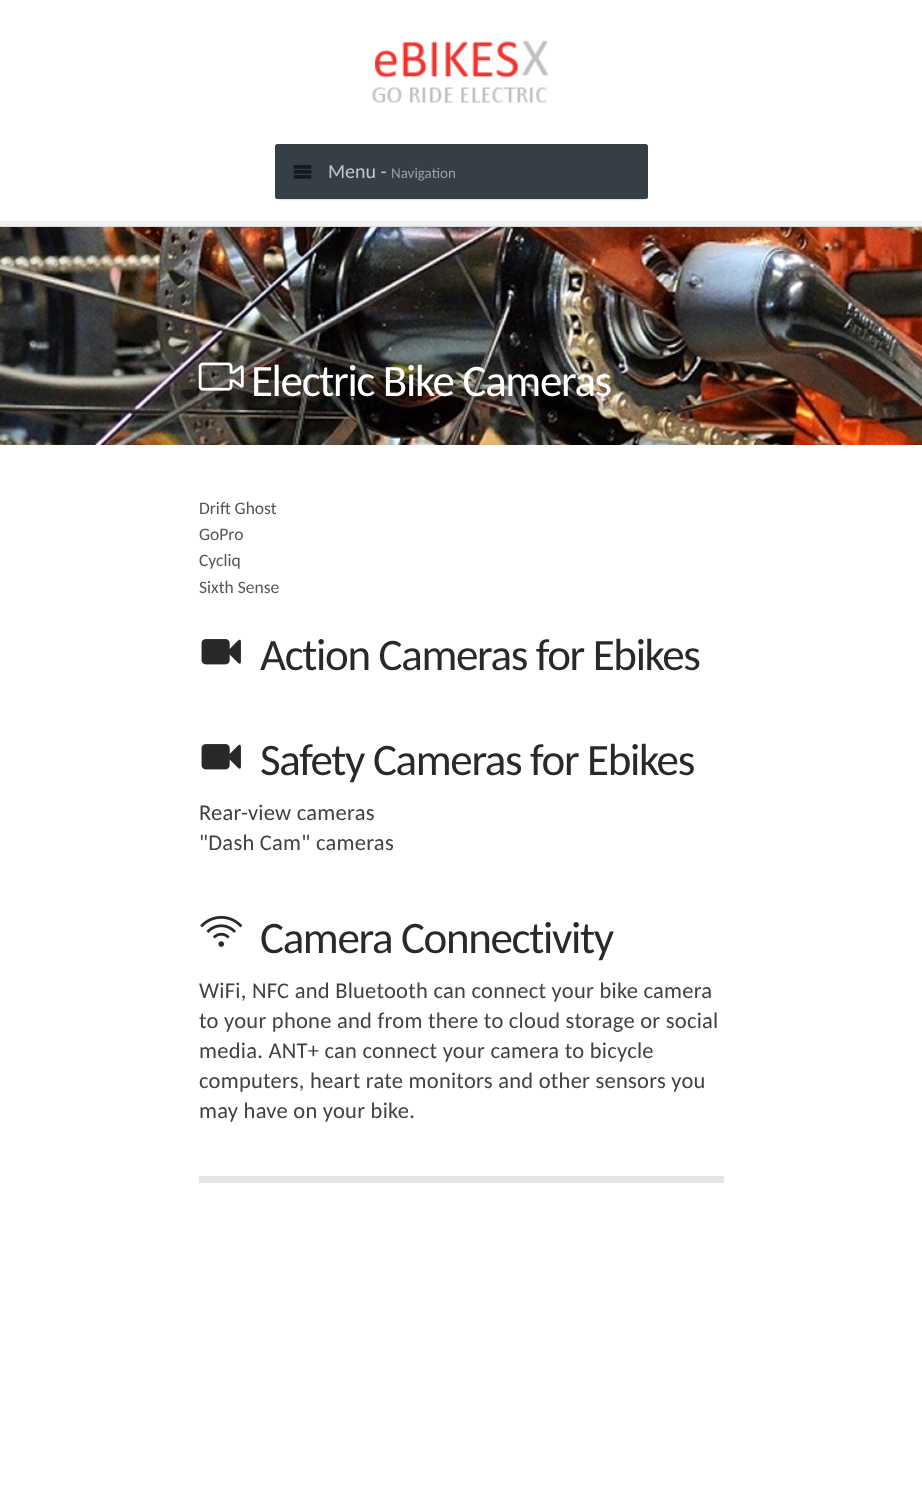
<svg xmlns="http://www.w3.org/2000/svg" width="922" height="1495">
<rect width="100%" height="100%" fill="#fff"/>
<rect y="221" width="922" height="5" fill="#f0f0f0"/>
<image x="372" y="40" width="177" height="63" href="media/1.png"/>
<rect x="278" y="149" width="367" height="50" fill="#0000004d" filter="blur(1px)"/>
<rect x="275" y="144" width="373" height="55" rx="2.5" fill="#363f46"/>
<image x="293" y="165" width="19" height="14" href="media/2.png"/>
<text x="328" y="178" style="font-family:Carlito;font-size:20px;fill:#c3c5c8">Menu -</text>
<text x="391" y="178" style="font-family:Carlito;font-size:15px;fill:#9b9fa3">Navigation</text>
<image x="0" y="227" width="922" height="218" href="media/3.png"/>
<rect y="226" width="922" height="1" fill="#d9d9d9"/>
<image x="198" y="362" width="46" height="29" href="media/4.png"/>
<text x="251" y="396" style="font-family:Carlito;font-size:45px;letter-spacing:-1.35px;fill:#fff">Electric Bike Cameras</text>
<text x="199" y="514" style="font-family:Carlito;font-size:17.5px;fill:#555">Drift Ghost</text>
<text x="199" y="540" style="font-family:Carlito;font-size:17.5px;fill:#555">GoPro</text>
<text x="199" y="566" style="font-family:Carlito;font-size:17.5px;fill:#555">Cycliq</text>
<text x="199" y="593" style="font-family:Carlito;font-size:17.5px;fill:#555">Sixth Sense</text>
<image x="201" y="639" width="40" height="26" href="media/5.png"/>
<text x="260" y="670" style="font-family:Carlito;font-size:45px;letter-spacing:-1.35px;fill:#292929">Action Cameras for Ebikes</text>
<image x="201" y="744" width="40" height="26" href="media/5.png"/>
<text x="260" y="775" style="font-family:Carlito;font-size:45px;letter-spacing:-1.35px;fill:#292929">Safety Cameras for Ebikes</text>
<text x="199" y="820" style="font-family:Carlito;font-size:22.5px;letter-spacing:0.25px;fill:#424242">Rear-view cameras</text>
<text x="199" y="850" style="font-family:Carlito;font-size:22.5px;letter-spacing:0.25px;fill:#424242">"Dash Cam" cameras</text>
<image x="200" y="915" width="43" height="32" href="media/6.png"/>
<text x="260" y="953" style="font-family:Carlito;font-size:45px;letter-spacing:-1.35px;fill:#292929">Camera Connectivity</text>
<text x="199" y="998" style="font-family:Carlito;font-size:22.5px;letter-spacing:0.25px;fill:#424242">WiFi, NFC and Bluetooth can connect your bike camera</text>
<text x="199" y="1028" style="font-family:Carlito;font-size:22.5px;letter-spacing:0.25px;fill:#424242">to your phone and from there to cloud storage or social</text>
<text x="199" y="1058" style="font-family:Carlito;font-size:22.5px;letter-spacing:0.25px;fill:#424242">media. ANT+ can connect your camera to bicycle</text>
<text x="199" y="1088" style="font-family:Carlito;font-size:22.5px;letter-spacing:0.25px;fill:#424242">computers, heart rate monitors and other sensors you</text>
<text x="199" y="1118" style="font-family:Carlito;font-size:22.5px;letter-spacing:0.25px;fill:#424242">may have on your bike.</text>
<rect x="199" y="1176" width="525" height="7" fill="#e5e5e5"/>
</svg>
